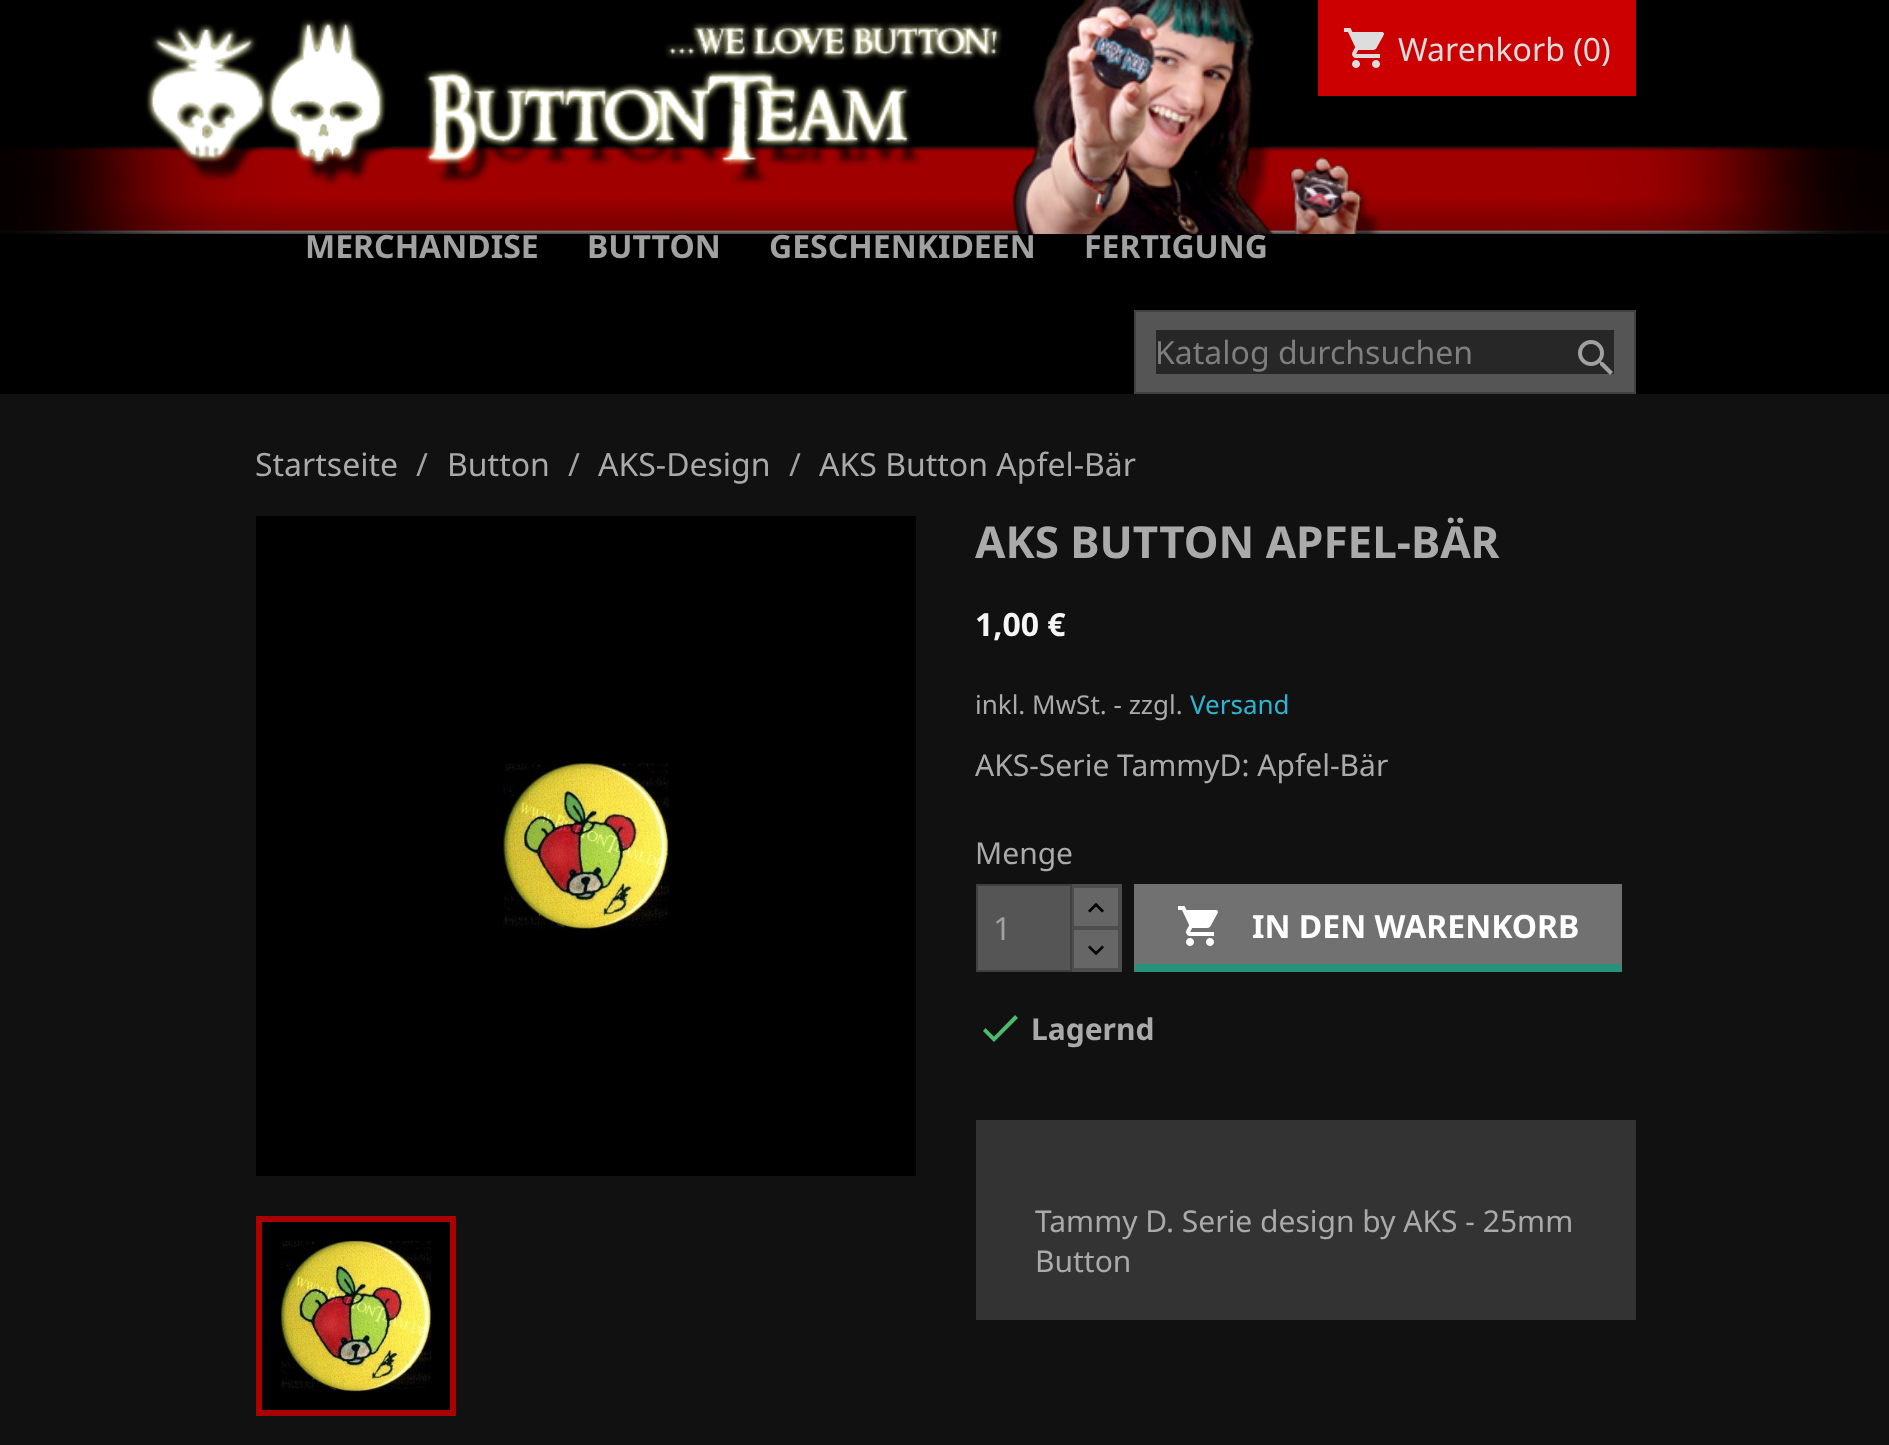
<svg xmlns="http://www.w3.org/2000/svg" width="1889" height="1445">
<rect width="100%" height="100%" fill="#000"/>
<image x="0" y="0" width="1889" height="234" href="media/1.png"/>
<rect x="1318" width="318" height="96" fill="#c00"/>
<image x="1343" y="28" width="41" height="40" href="media/2.png"/>
<text x="1398" y="61" style="font-family:Noto Sans;font-size:32px;fill:#ddd">Warenkorb (0)</text>
<text x="305" y="258" style="font-family:Noto Sans;font-size:32px;font-weight:bold;fill:#a1a1a1">MERCHANDISE</text>
<text x="587" y="258" style="font-family:Noto Sans;font-size:32px;font-weight:bold;fill:#a1a1a1">BUTTON</text>
<text x="769" y="258" style="font-family:Noto Sans;font-size:32px;font-weight:bold;fill:#a1a1a1">GESCHENKIDEEN</text>
<text x="1084" y="258" style="font-family:Noto Sans;font-size:32px;font-weight:bold;fill:#a1a1a1">FERTIGUNG</text>
<rect x="1135" y="311" width="500" height="82" fill="#555" stroke="#404040" stroke-width="2"/>
<rect x="1156" y="330" width="458" height="44" fill="#272727"/>
<text x="1155" y="364" style="font-family:Noto Sans;font-size:32px;fill:#7e7e7e">Katalog durchsuchen</text>
<image x="1578" y="340" width="35" height="35" href="media/3.png"/>
<rect y="394" width="1889" height="1051" fill="#111"/>
<text x="255" y="476" style="font-family:Noto Sans;font-size:32px;fill:#aaa">Startseite</text>
<text x="416" y="476" style="font-family:Noto Sans;font-size:32px;fill:#a1a1a1">/</text>
<text x="447" y="476" style="font-family:Noto Sans;font-size:32px;fill:#aaa">Button</text>
<text x="568" y="476" style="font-family:Noto Sans;font-size:32px;fill:#a1a1a1">/</text>
<text x="598" y="476" style="font-family:Noto Sans;font-size:32px;fill:#aaa">AKS-Design</text>
<text x="789" y="476" style="font-family:Noto Sans;font-size:32px;fill:#a1a1a1">/</text>
<text x="819" y="476" style="font-family:Noto Sans;font-size:32px;fill:#aaa">AKS Button Apfel-Bär</text>
<image x="256" y="516" width="660" height="660" href="media/4.png"/>
<rect x="259" y="1219" width="194" height="194" fill="none" stroke="#a00" stroke-width="6"/>
<image x="262" y="1222" width="188" height="188" href="media/5.png"/>
<text x="975" y="558" style="font-family:Noto Sans;font-size:44px;font-weight:bold;fill:#aaa">AKS BUTTON APFEL-BÄR</text>
<text x="975" y="636" style="font-family:Noto Sans;font-size:32px;font-weight:bold;fill:#f5f5f5">1,00 €</text>
<text x="975" y="714" style="font-family:Noto Sans;font-size:26px;fill:#aaa">inkl. MwSt. - zzgl.</text>
<text x="1190" y="714" style="font-family:Noto Sans;font-size:26px;fill:#2fb5d2">Versand</text>
<text x="975" y="776" style="font-family:Noto Sans;font-size:30px;fill:#aaa">AKS-Serie TammyD: Apfel-Bär</text>
<text x="975" y="864" style="font-family:Noto Sans;font-size:30px;fill:#aaa">Menge</text>
<rect x="1072" y="886" width="48" height="42" fill="#666" stroke="#4d4d4d" stroke-width="4"/>
<rect x="1072" y="928" width="48" height="42" fill="#666" stroke="#4d4d4d" stroke-width="4"/>
<rect x="977" y="885" width="94" height="86" fill="#555" stroke="#404040" stroke-width="2"/>
<text x="993" y="940" style="font-family:Noto Sans;font-size:32px;fill:#a1a1a1">1</text>
<image x="1088" y="902" width="16" height="11" href="media/6.png"/>
<image x="1088" y="945" width="16" height="11" href="media/7.png"/>
<rect x="1134" y="884" width="488" height="88" fill="#717171"/>
<path d="M1622 972h-488l2-8h484z" fill="#259279"/>
<image x="1177" y="906" width="41" height="40" href="media/8.png"/>
<text x="1252" y="938" style="font-family:Noto Sans;font-size:32px;font-weight:bold;fill:#fff">IN DEN WARENKORB</text>
<path d="M994 1036.5l21-21.5l3 3l-24 24l-11-11l2.5-3z" fill="#4cbb6c"/>
<text x="1031" y="1040" style="font-family:Noto Sans;font-size:30px;font-weight:bold;fill:#aaa">Lagernd</text>
<rect x="976" y="1120" width="660" height="200" fill="#333"/>
<text x="1035" y="1232" style="font-family:Noto Sans;font-size:30px;fill:#aaa">Tammy D. Serie design by AKS - 25mm</text>
<text x="1035" y="1272" style="font-family:Noto Sans;font-size:30px;fill:#aaa">Button</text>
</svg>
